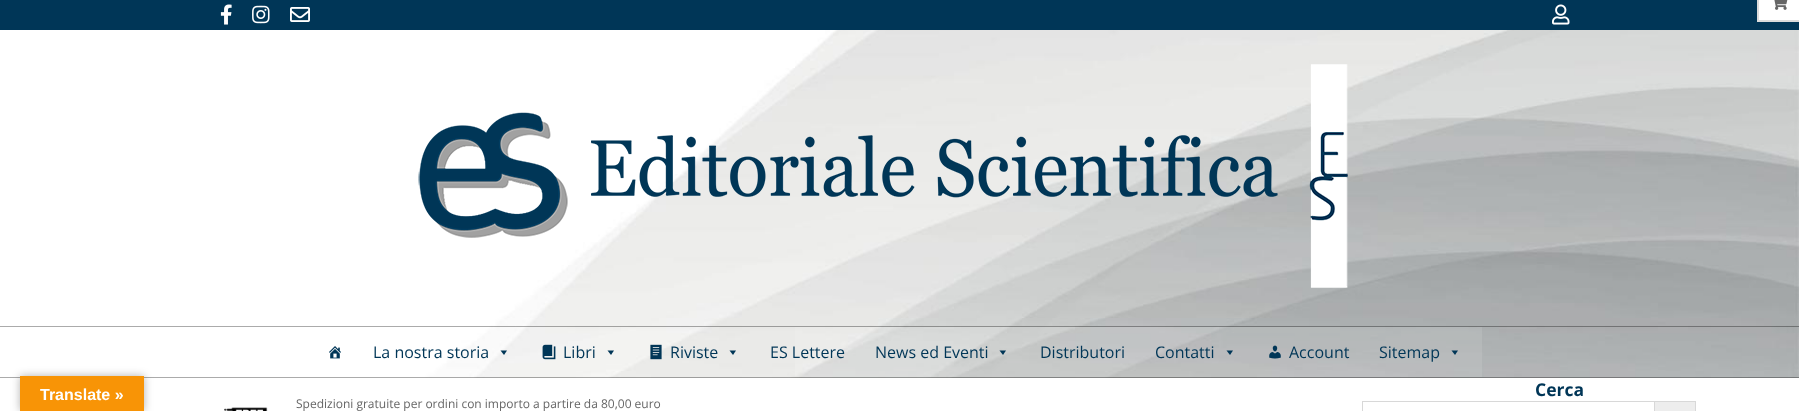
<svg xmlns="http://www.w3.org/2000/svg" width="1799" height="411">
<rect width="100%" height="100%" fill="#fff"/>
<image x="386" y="30" width="1413" height="348" href="media/1.png"/>
<rect width="1799" height="30" fill="#003657"/>
<image x="220" y="4" width="12" height="21" href="media/2.png"/>
<image x="252" y="5" width="18" height="19" href="media/3.png"/>
<image x="290" y="7" width="20" height="15" href="media/4.png"/>
<image x="1552" y="4" width="18" height="21" href="media/5.png"/>
<rect x="1757" width="42" height="22" fill="#fff"/>
<path d="M1799 22h-42l2-2h40z" fill="#dbdbdb"/>
<path d="M1757 22v-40l2 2v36z" fill="#00000024"/>
<image x="1774" y="0" width="14" height="10" href="media/6.png"/>
<rect y="377" width="1799" height="1" fill="#00000054"/>
<rect x="20" y="376" width="124" height="35" fill="#0000004d" filter="blur(4.5px)"/>
<rect x="20" y="376" width="124" height="35" fill="#f89406"/>
<text x="40" y="400" style="font-family:Liberation Sans;font-size:16px;font-weight:bold;fill:#fff">Translate »</text>
<rect y="326" width="1799" height="1" fill="#00000054"/>
<image x="418" y="64" width="930" height="224" href="media/7.png"/>
<rect x="795" y="327" width="687" height="50" fill="#ffffff1a"/>
<image x="329" y="346" width="12" height="13" href="media/8.png"/>
<text x="373" y="358" style="font-family:Open Sans;font-size:16px;fill:#003657">La nostra storia</text>
<path d="M507 350.5l-3 4.5l-3.5-4.5z" fill="#003657"/>
<image x="542" y="344" width="14" height="16" href="media/9.png"/>
<text x="563" y="358" style="font-family:Open Sans;font-size:16px;fill:#003657">Libri</text>
<path d="M614 350.5l-3 4.5l-3.5-4.5z" fill="#003657"/>
<image x="650" y="344" width="12" height="16" href="media/10.png"/>
<text x="670" y="358" style="font-family:Open Sans;font-size:16px;fill:#003657">Riviste</text>
<path d="M736 350.5l-3 4.5l-3.5-4.5z" fill="#003657"/>
<text x="770" y="358" style="font-family:Open Sans;font-size:16px;fill:#003657">ES Lettere</text>
<text x="875" y="358" style="font-family:Open Sans;font-size:16px;fill:#003657">News ed Eventi</text>
<path d="M1006 350.5l-3 4.5l-3.5-4.5z" fill="#003657"/>
<text x="1040" y="358" style="font-family:Open Sans;font-size:16px;fill:#003657">Distributori</text>
<text x="1155" y="358" style="font-family:Open Sans;font-size:16px;fill:#003657">Contatti</text>
<path d="M1233 350.5l-3 4.5l-3.5-4.5z" fill="#003657"/>
<image x="1269" y="345" width="12" height="14" href="media/11.png"/>
<text x="1289" y="358" style="font-family:Open Sans;font-size:16px;fill:#003657">Account</text>
<text x="1379" y="358" style="font-family:Open Sans;font-size:16px;fill:#003657">Sitemap</text>
<path d="M1458 350.5l-3 4.5l-3.5-4.5z" fill="#003657"/>
<text x="1535" y="396" style="font-family:Open Sans;font-size:17.5px;font-weight:bold;fill:#003657">Cerca</text>
<rect x="1654.5" y="401.5" width="41" height="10" fill="#ededed" stroke="#d8d8d8"/>
<rect x="1362.5" y="401.5" width="292" height="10" fill="none" stroke="#d8d8d8"/>
<image x="224" y="407" width="44" height="4" href="media/12.png"/>
<text x="296" y="408" style="font-family:Open Sans;font-size:12px;fill:#666">Spedizioni gratuite per ordini con importo a partire da 80,00 euro</text>
</svg>
